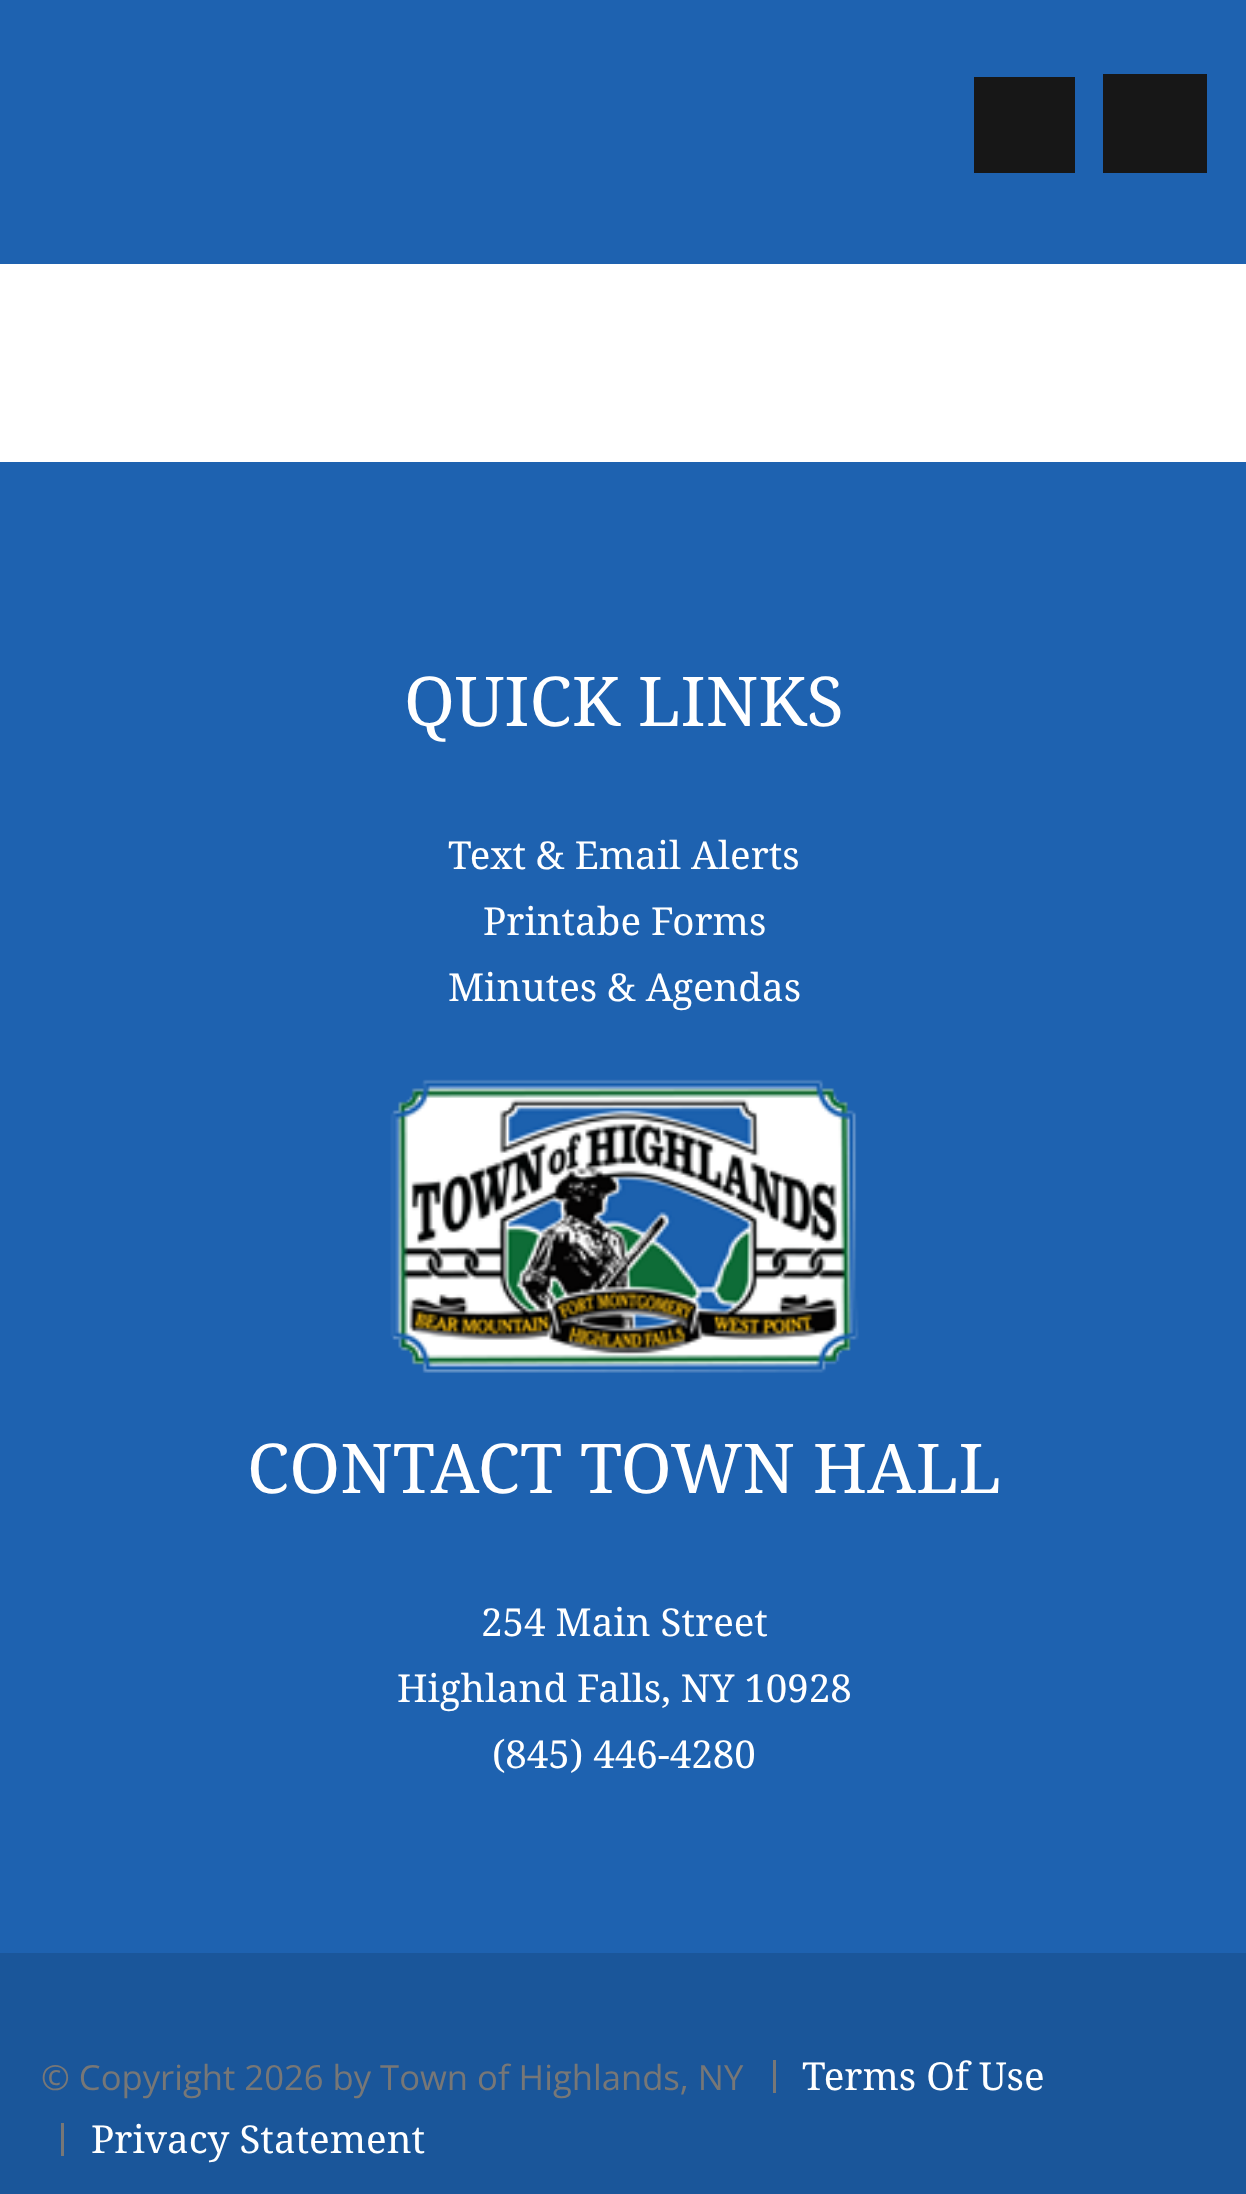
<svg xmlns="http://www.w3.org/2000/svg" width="1246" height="2194">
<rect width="100%" height="100%" fill="#fff"/>
<rect width="1246" height="264" fill="#1e62b0"/>
<rect x="974" y="77" width="101" height="96" fill="#171717"/>
<rect x="1103" y="74" width="104" height="99" fill="#171717"/>
<rect y="462" width="1246" height="1491" fill="#1e62b0"/>
<text x="404" y="726" style="font-family:Noto Serif;font-size:68.75px;fill:#fff">QUICK LINKS</text>
<text x="448" y="869" style="font-family:Noto Serif;font-size:38.5px;fill:#fff">Text &amp; Email Alerts</text>
<text x="483" y="935" style="font-family:Noto Serif;font-size:38.5px;fill:#fff">Printabe Forms</text>
<text x="448" y="1001" style="font-family:Noto Serif;font-size:38.5px;fill:#fff">Minutes &amp; Agendas</text>
<image x="390" y="1079" width="469" height="294" href="media/1.png"/>
<text x="247" y="1493" style="font-family:Noto Serif;font-size:68.75px;fill:#fff">CONTACT TOWN HALL</text>
<text x="481" y="1636" style="font-family:Noto Serif;font-size:38.5px;fill:#fff">254 Main Street</text>
<text x="397" y="1702" style="font-family:Noto Serif;font-size:38.5px;fill:#fff">Highland Falls, NY 10928</text>
<text x="492" y="1768" style="font-family:Noto Serif;font-size:38.5px;fill:#fff">(845) 446-4280</text>
<rect y="1953" width="1246" height="241" fill="#1a569a"/>
<text x="41" y="2090" style="font-family:Open Sans;font-size:34.65px;fill:#777">© Copyright 2026 by Town of Highlands, NY</text>
<rect x="773" y="2060" width="3" height="33" fill="#777"/>
<text x="802" y="2090" style="font-family:Noto Serif;font-size:38.5px;fill:#fff">Terms Of Use</text>
<rect x="61" y="2123" width="3" height="33" fill="#777"/>
<text x="91" y="2153" style="font-family:Noto Serif;font-size:38.5px;fill:#fff">Privacy Statement</text>
</svg>
